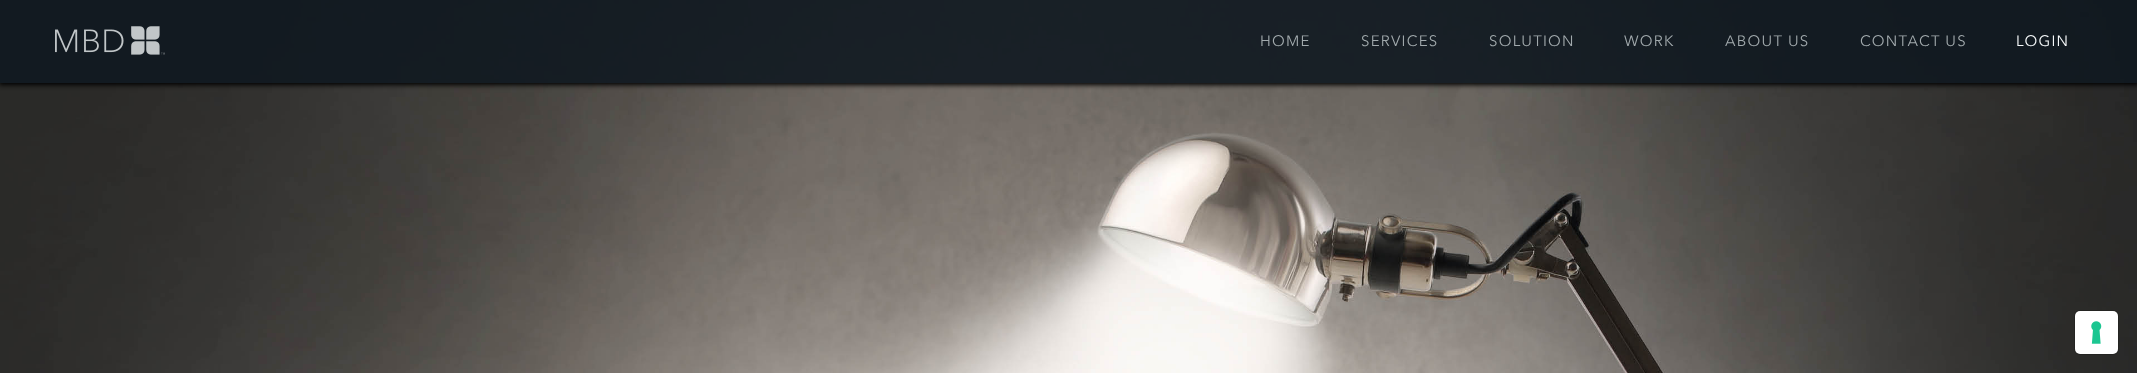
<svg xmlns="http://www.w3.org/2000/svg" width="2137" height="373">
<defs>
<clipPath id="clip1"><path d="M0 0h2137v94h-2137zm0 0h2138v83h-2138z" clip-rule="evenodd"/></clipPath>
</defs>
<rect width="100%" height="100%" fill="#fff"/>
<image x="0" y="0" width="2137" height="373" href="media/1.png"/>
<g clip-path="url(#clip1)">
<rect x="-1" width="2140" height="85" fill="#000" filter="blur(2.5px)"/>
</g>
<rect width="2137" height="83" fill="#101820e6"/>
<image x="55" y="26" width="110" height="29" href="media/2.png"/>
<text x="1260" y="46" style="font-family:Avenir Next;font-size:15px;letter-spacing:1.25px;fill:#a2aaad">HOME</text>
<text x="1361" y="46" style="font-family:Avenir Next;font-size:15px;letter-spacing:1.25px;fill:#a2aaad">SERVICES</text>
<text x="1489" y="46" style="font-family:Avenir Next;font-size:15px;letter-spacing:1.25px;fill:#a2aaad">SOLUTION</text>
<text x="1624" y="46" style="font-family:Avenir Next;font-size:15px;letter-spacing:1.25px;fill:#a2aaad">WORK</text>
<text x="1725" y="46" style="font-family:Avenir Next;font-size:15px;letter-spacing:1.25px;fill:#a2aaad">ABOUT US</text>
<text x="1860" y="46" style="font-family:Avenir Next;font-size:15px;letter-spacing:1.25px;fill:#a2aaad">CONTACT US</text>
<text x="2016" y="46" style="font-family:Avenir Next;font-size:15px;letter-spacing:1.25px;fill:#f8fbfc">LOGIN</text>
<rect x="2074.5" y="310.5" width="44" height="44" rx="5.5" fill="none" stroke="#242422"/>
<rect x="2075" y="311" width="43" height="43" rx="5" fill="#fff"/>
<image x="2091" y="321" width="11" height="23" href="media/3.png"/>
</svg>
